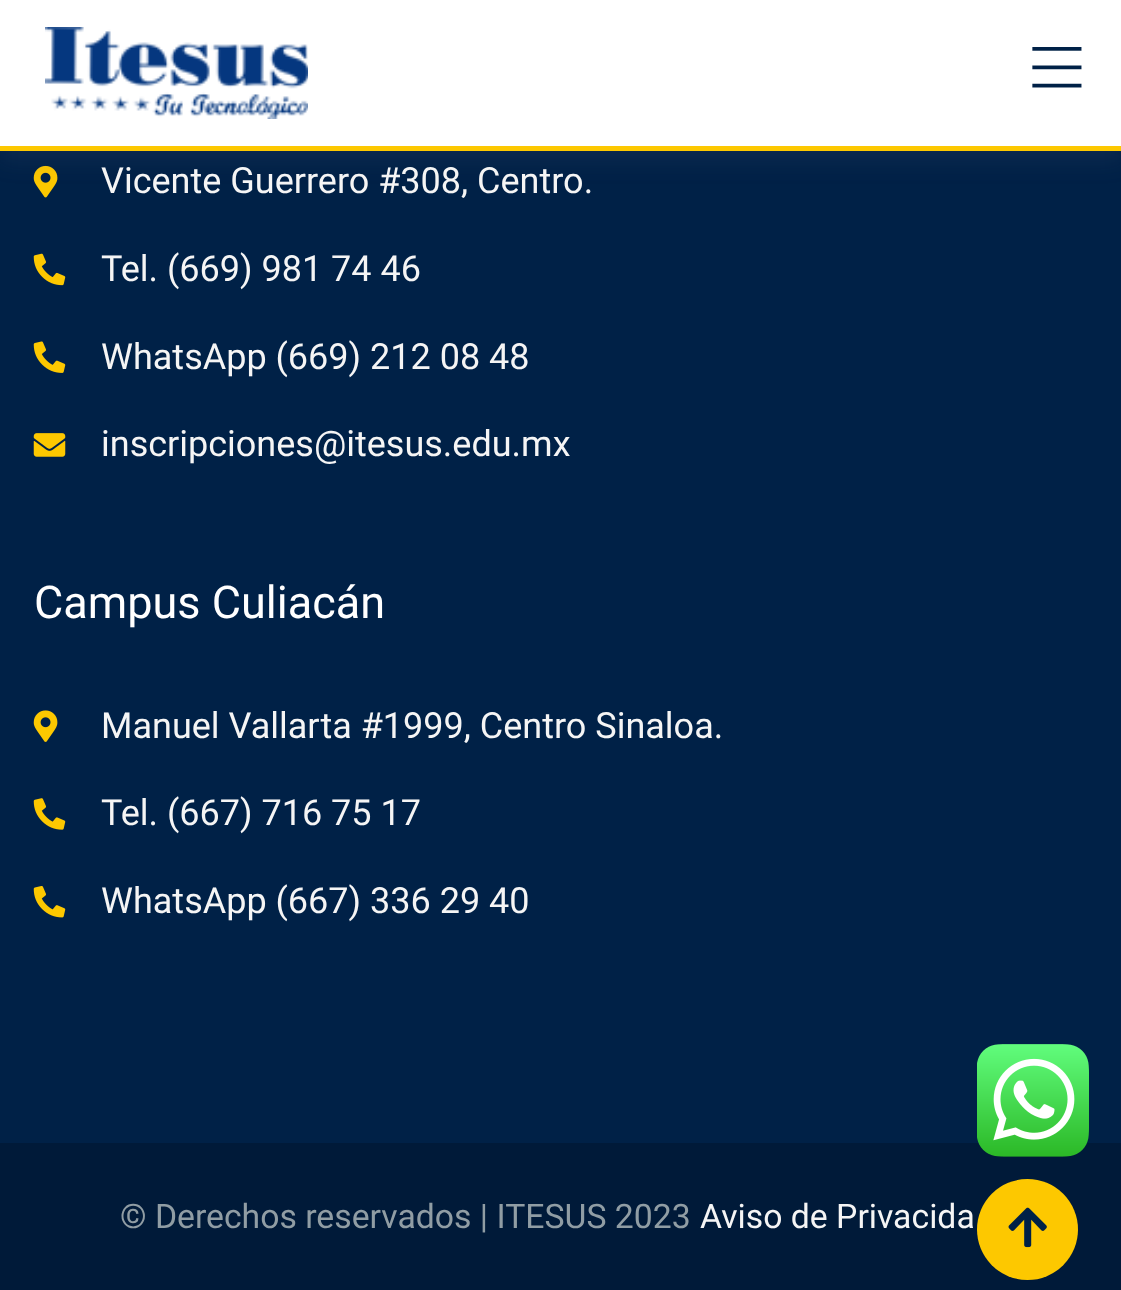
<svg xmlns="http://www.w3.org/2000/svg" width="1121" height="1290">
<rect width="100%" height="100%" fill="#002147"/>
<image x="33" y="165" width="25" height="33" href="media/2.png"/>
<rect y="11" width="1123" height="151" fill="#5765801f" filter="blur(11px)"/>
<rect width="1121" height="146" fill="#fff"/>
<rect y="146" width="1121" height="5" fill="#fdc800"/>
<image x="45" y="27" width="263" height="92" href="media/1.png"/>
<text x="1044" y="43" transform="rotate(90 1044 43)" style="font-family:Liberation Serif;font-size:54px;font-weight:bold;letter-spacing:-3.5px;fill:#002147">| | |</text>
<text x="101" y="193" style="font-family:Roboto;font-size:36px;fill:#f5f5f5">Vicente Guerrero #308, Centro.</text>
<image x="33" y="253" width="33" height="33" href="media/3.png"/>
<text x="101" y="281" style="font-family:Roboto;font-size:36px;fill:#f5f5f5">Tel. (669) 981 74 46</text>
<image x="33" y="341" width="33" height="32" href="media/4.png"/>
<text x="101" y="369" style="font-family:Roboto;font-size:36px;fill:#f5f5f5">WhatsApp (669) 212 08 48</text>
<image x="33" y="433" width="33" height="24" href="media/5.png"/>
<text x="101" y="456" style="font-family:Roboto;font-size:36px;fill:#f5f5f5">inscripciones@itesus.edu.mx</text>
<text x="34" y="618" style="font-family:Roboto;font-size:45px;fill:#fff">Campus Culiacán</text>
<image x="33" y="710" width="25" height="32" href="media/6.png"/>
<text x="101" y="738" style="font-family:Roboto;font-size:36px;fill:#f5f5f5">Manuel Vallarta #1999, Centro Sinaloa.</text>
<image x="33" y="798" width="33" height="32" href="media/7.png"/>
<text x="101" y="825" style="font-family:Roboto;font-size:36px;fill:#f5f5f5">Tel. (667) 716 75 17</text>
<image x="33" y="886" width="33" height="32" href="media/8.png"/>
<text x="101" y="913" style="font-family:Roboto;font-size:36px;fill:#f5f5f5">WhatsApp (667) 336 29 40</text>
<rect y="1143" width="1121" height="147" fill="#001a39"/>
<text x="120" y="1228" style="font-family:Roboto;font-size:33.75px;fill:#909da4">© Derechos reservados | ITESUS 2023</text>
<text x="700" y="1228" style="font-family:Roboto;font-size:33.75px;fill:#f5f5f5">Aviso de Privacida</text>
<image x="977" y="1044" width="112" height="113" href="media/9.png"/>
<circle cx="1027.5" cy="1229.5" r="50.5" fill="#fdc800"/>
<image x="1008" y="1207" width="39" height="41" href="media/10.png"/>
</svg>
